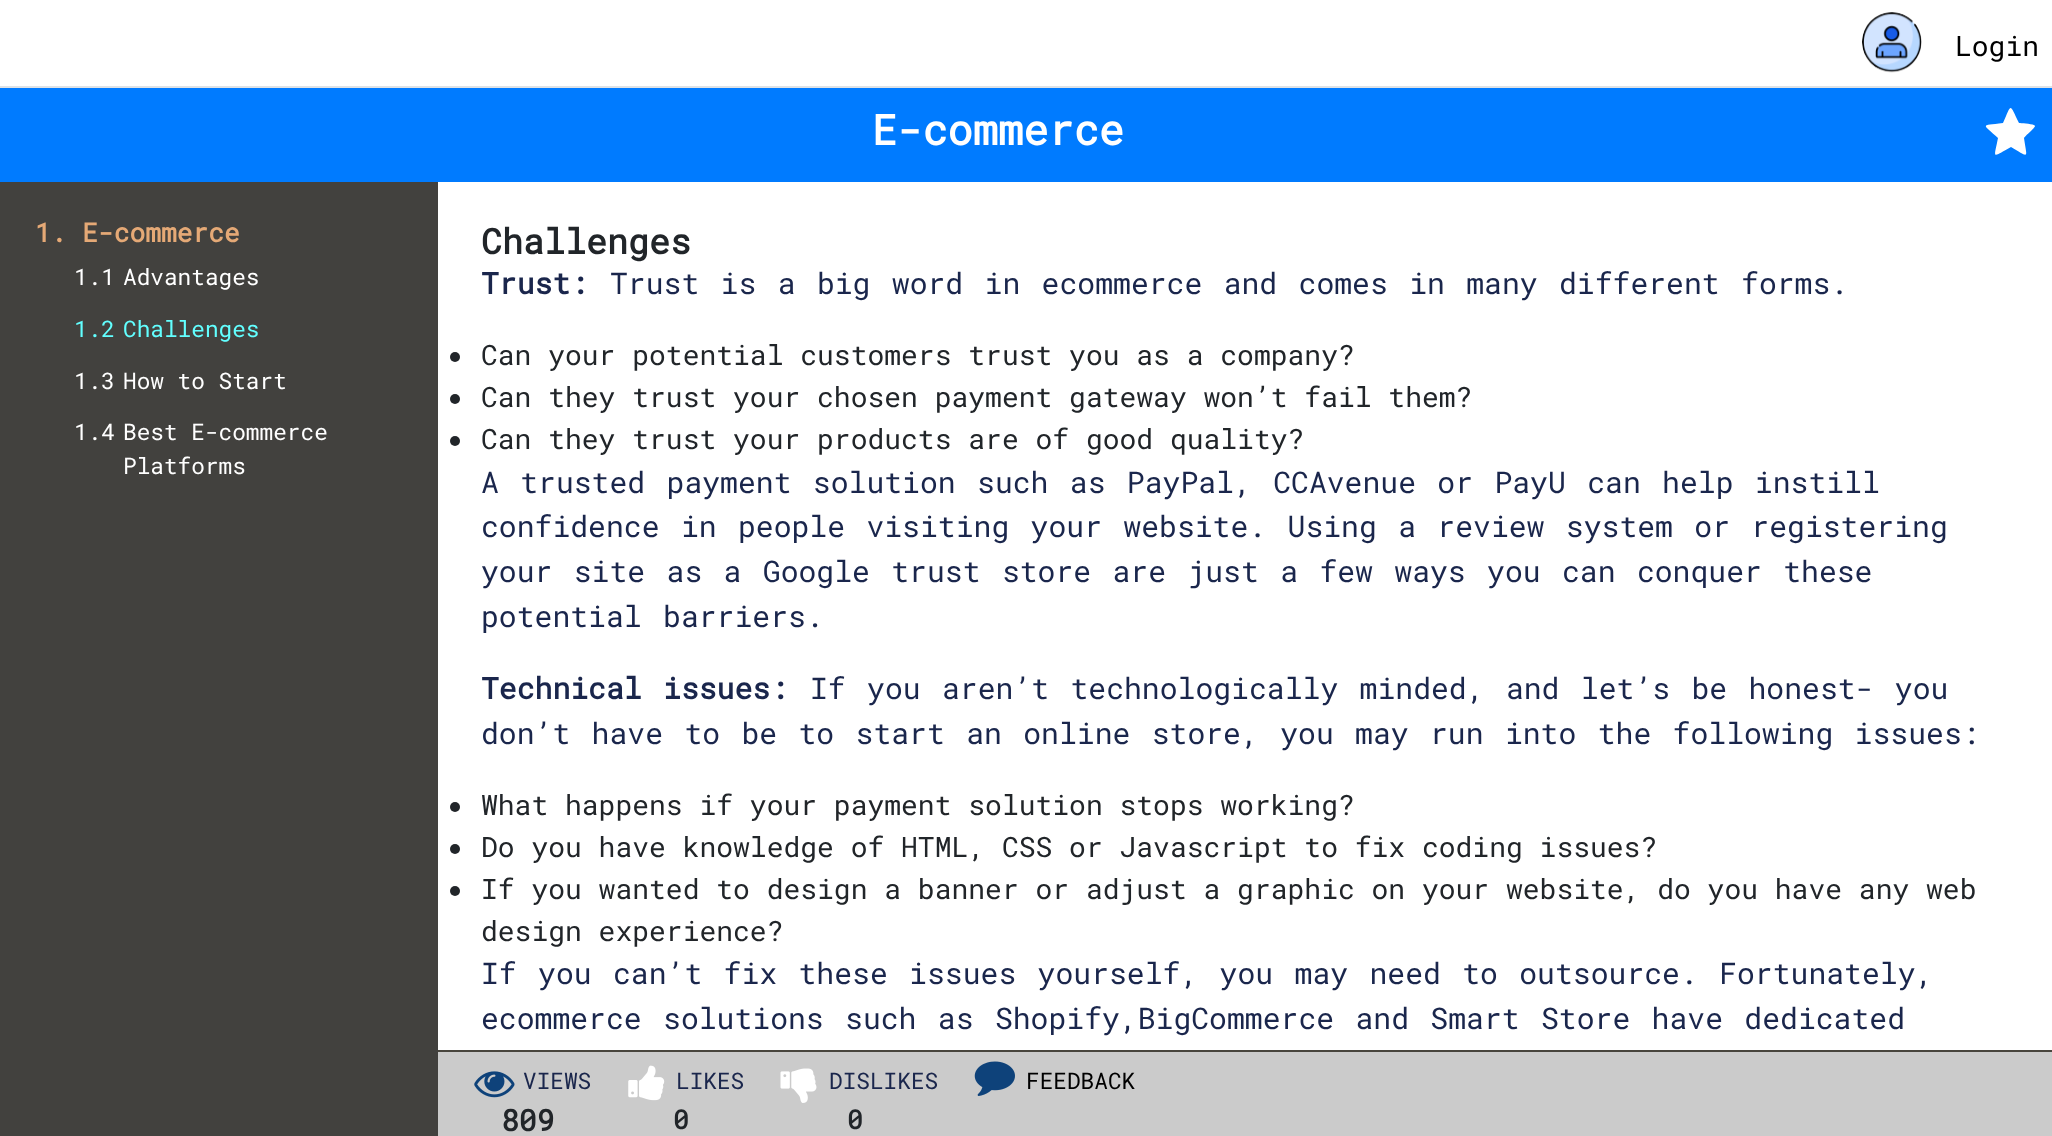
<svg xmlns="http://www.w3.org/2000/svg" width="2052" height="1136">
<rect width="100%" height="100%" fill="#fff"/>
<rect y="86" width="2052" height="2" fill="#dee2e6"/>
<image x="1862" y="12" width="60" height="61" href="media/1.png"/>
<text x="1955" y="56" style="font-family:Roboto Mono;font-size:28px;fill:#000">Login</text>
<rect y="88" width="2052" height="94" fill="#007bff"/>
<text x="872" y="145" style="font-family:Roboto Mono;font-size:42px;font-weight:bold;fill:#fff">E-commerce</text>
<path d="M2035 126c0 2-10 10-11 12c3 21 6 20-13 9c-20 11-17 12-13-9c-16-15-18-12 5-15c9-20 6-20 16 0c2 0 16 1 16 3z" fill="#fff"/>
<rect y="182" width="438" height="954" fill="#42413e"/>
<text x="35" y="242" style="font-family:Roboto Mono;font-size:26.25px;font-weight:bold;fill:#e5a976">1. E-commerce</text>
<text x="74" y="285" style="font-family:Roboto Mono;font-size:22.75px;fill:#fff">1.1</text>
<text x="123" y="285" style="font-family:Roboto Mono;font-size:22.75px;fill:#fff">Advantages</text>
<text x="74" y="337" style="font-family:Roboto Mono;font-size:22.75px;fill:#62ffff">1.2</text>
<text x="123" y="337" style="font-family:Roboto Mono;font-size:22.75px;fill:#62ffff">Challenges</text>
<text x="74" y="389" style="font-family:Roboto Mono;font-size:22.75px;fill:#fff">1.3</text>
<text x="123" y="389" style="font-family:Roboto Mono;font-size:22.75px;fill:#fff">How to Start</text>
<text x="74" y="440" style="font-family:Roboto Mono;font-size:22.75px;fill:#fff">1.4</text>
<text x="123" y="440" style="font-family:Roboto Mono;font-size:22.75px;fill:#fff">Best E-commerce</text>
<text x="123" y="474" style="font-family:Roboto Mono;font-size:22.75px;fill:#fff">Platforms</text>
<text x="481" y="254" style="font-family:Roboto Mono;font-size:35px;font-weight:bold;fill:#212529">Challenges</text>
<text x="481" y="294" style="font-family:Roboto Mono;font-size:29.75px;font-weight:bold;fill:#1a264c">Trust:</text>
<text x="610" y="294" word-spacing="3.5" style="font-family:Roboto Mono;font-size:29.75px;fill:#1a264c">Trust is a big word in ecommerce and comes in many different forms.</text>
<circle cx="455" cy="357" r="5" fill="#212529"/>
<text x="481" y="365" style="font-family:Roboto Mono;font-size:28px;fill:#212529">Can your potential customers trust you as a company?</text>
<circle cx="455" cy="399" r="5" fill="#212529"/>
<text x="481" y="407" style="font-family:Roboto Mono;font-size:28px;fill:#212529">Can they trust your chosen payment gateway won’t fail them?</text>
<circle cx="455" cy="441" r="5" fill="#212529"/>
<text x="481" y="449" style="font-family:Roboto Mono;font-size:28px;fill:#212529">Can they trust your products are of good quality?</text>
<text x="481" y="493" word-spacing="3.5" style="font-family:Roboto Mono;font-size:29.75px;fill:#1a264c">A trusted payment solution such as PayPal, CCAvenue or PayU can help instill</text>
<text x="481" y="537" word-spacing="3.5" style="font-family:Roboto Mono;font-size:29.75px;fill:#1a264c">confidence in people visiting your website. Using a review system or registering</text>
<text x="481" y="582" word-spacing="3.5" style="font-family:Roboto Mono;font-size:29.75px;fill:#1a264c">your site as a Google trust store are just a few ways you can conquer these</text>
<text x="481" y="627" word-spacing="3.5" style="font-family:Roboto Mono;font-size:29.75px;fill:#1a264c">potential barriers.</text>
<text x="481" y="699" word-spacing="3.5" style="font-family:Roboto Mono;font-size:29.75px;font-weight:bold;fill:#1a264c">Technical issues:</text>
<text x="810" y="699" word-spacing="3.5" style="font-family:Roboto Mono;font-size:29.75px;fill:#1a264c">If you aren’t technologically minded, and let’s be honest- you</text>
<text x="481" y="744" word-spacing="3.5" style="font-family:Roboto Mono;font-size:29.75px;fill:#1a264c">don’t have to be to start an online store, you may run into the following issues:</text>
<circle cx="455" cy="807" r="5" fill="#212529"/>
<text x="481" y="815" style="font-family:Roboto Mono;font-size:28px;fill:#212529">What happens if your payment solution stops working?</text>
<circle cx="455" cy="849" r="5" fill="#212529"/>
<text x="481" y="857" style="font-family:Roboto Mono;font-size:28px;fill:#212529">Do you have knowledge of HTML, CSS or Javascript to fix coding issues?</text>
<circle cx="455" cy="891" r="5" fill="#212529"/>
<text x="481" y="899" style="font-family:Roboto Mono;font-size:28px;fill:#212529">If you wanted to design a banner or adjust a graphic on your website, do you have any web</text>
<text x="481" y="941" style="font-family:Roboto Mono;font-size:28px;fill:#212529">design experience?</text>
<text x="481" y="984" word-spacing="3.5" style="font-family:Roboto Mono;font-size:29.75px;fill:#1a264c">If you can’t fix these issues yourself, you may need to outsource. Fortunately,</text>
<text x="481" y="1029" word-spacing="3.5" style="font-family:Roboto Mono;font-size:29.75px;fill:#1a264c">ecommerce solutions such as Shopify,BigCommerce and Smart Store have dedicated</text>
<rect x="438" y="1052" width="1614" height="84" fill="#cbcbcb"/>
<rect x="438" y="1050" width="1614" height="2" fill="#48453d"/>
<image x="474" y="1071" width="41" height="27" href="media/2.png"/>
<text x="523" y="1089" style="font-family:Roboto Mono;font-size:22.75px;fill:#1a264c">VIEWS</text>
<text x="501" y="1131" style="font-family:Roboto Mono;font-size:29.75px;font-weight:bold;fill:#212529">809</text>
<image x="628" y="1065" width="37" height="36" href="media/3.png"/>
<text x="676" y="1089" style="font-family:Roboto Mono;font-size:22.75px;fill:#1a264c">LIKES</text>
<text x="673" y="1129" style="font-family:Roboto Mono;font-size:26.25px;font-weight:bold;fill:#212529">0</text>
<image x="780" y="1068" width="37" height="35" href="media/4.png"/>
<text x="829" y="1089" style="font-family:Roboto Mono;font-size:22.75px;fill:#1a264c">DISLIKES</text>
<text x="847" y="1129" style="font-family:Roboto Mono;font-size:26.25px;font-weight:bold;fill:#212529">0</text>
<image x="974" y="1061" width="41" height="35" href="media/5.png"/>
<text x="1026" y="1089" style="font-family:Roboto Mono;font-size:22.75px;fill:#000">FEEDBACK</text>
</svg>
